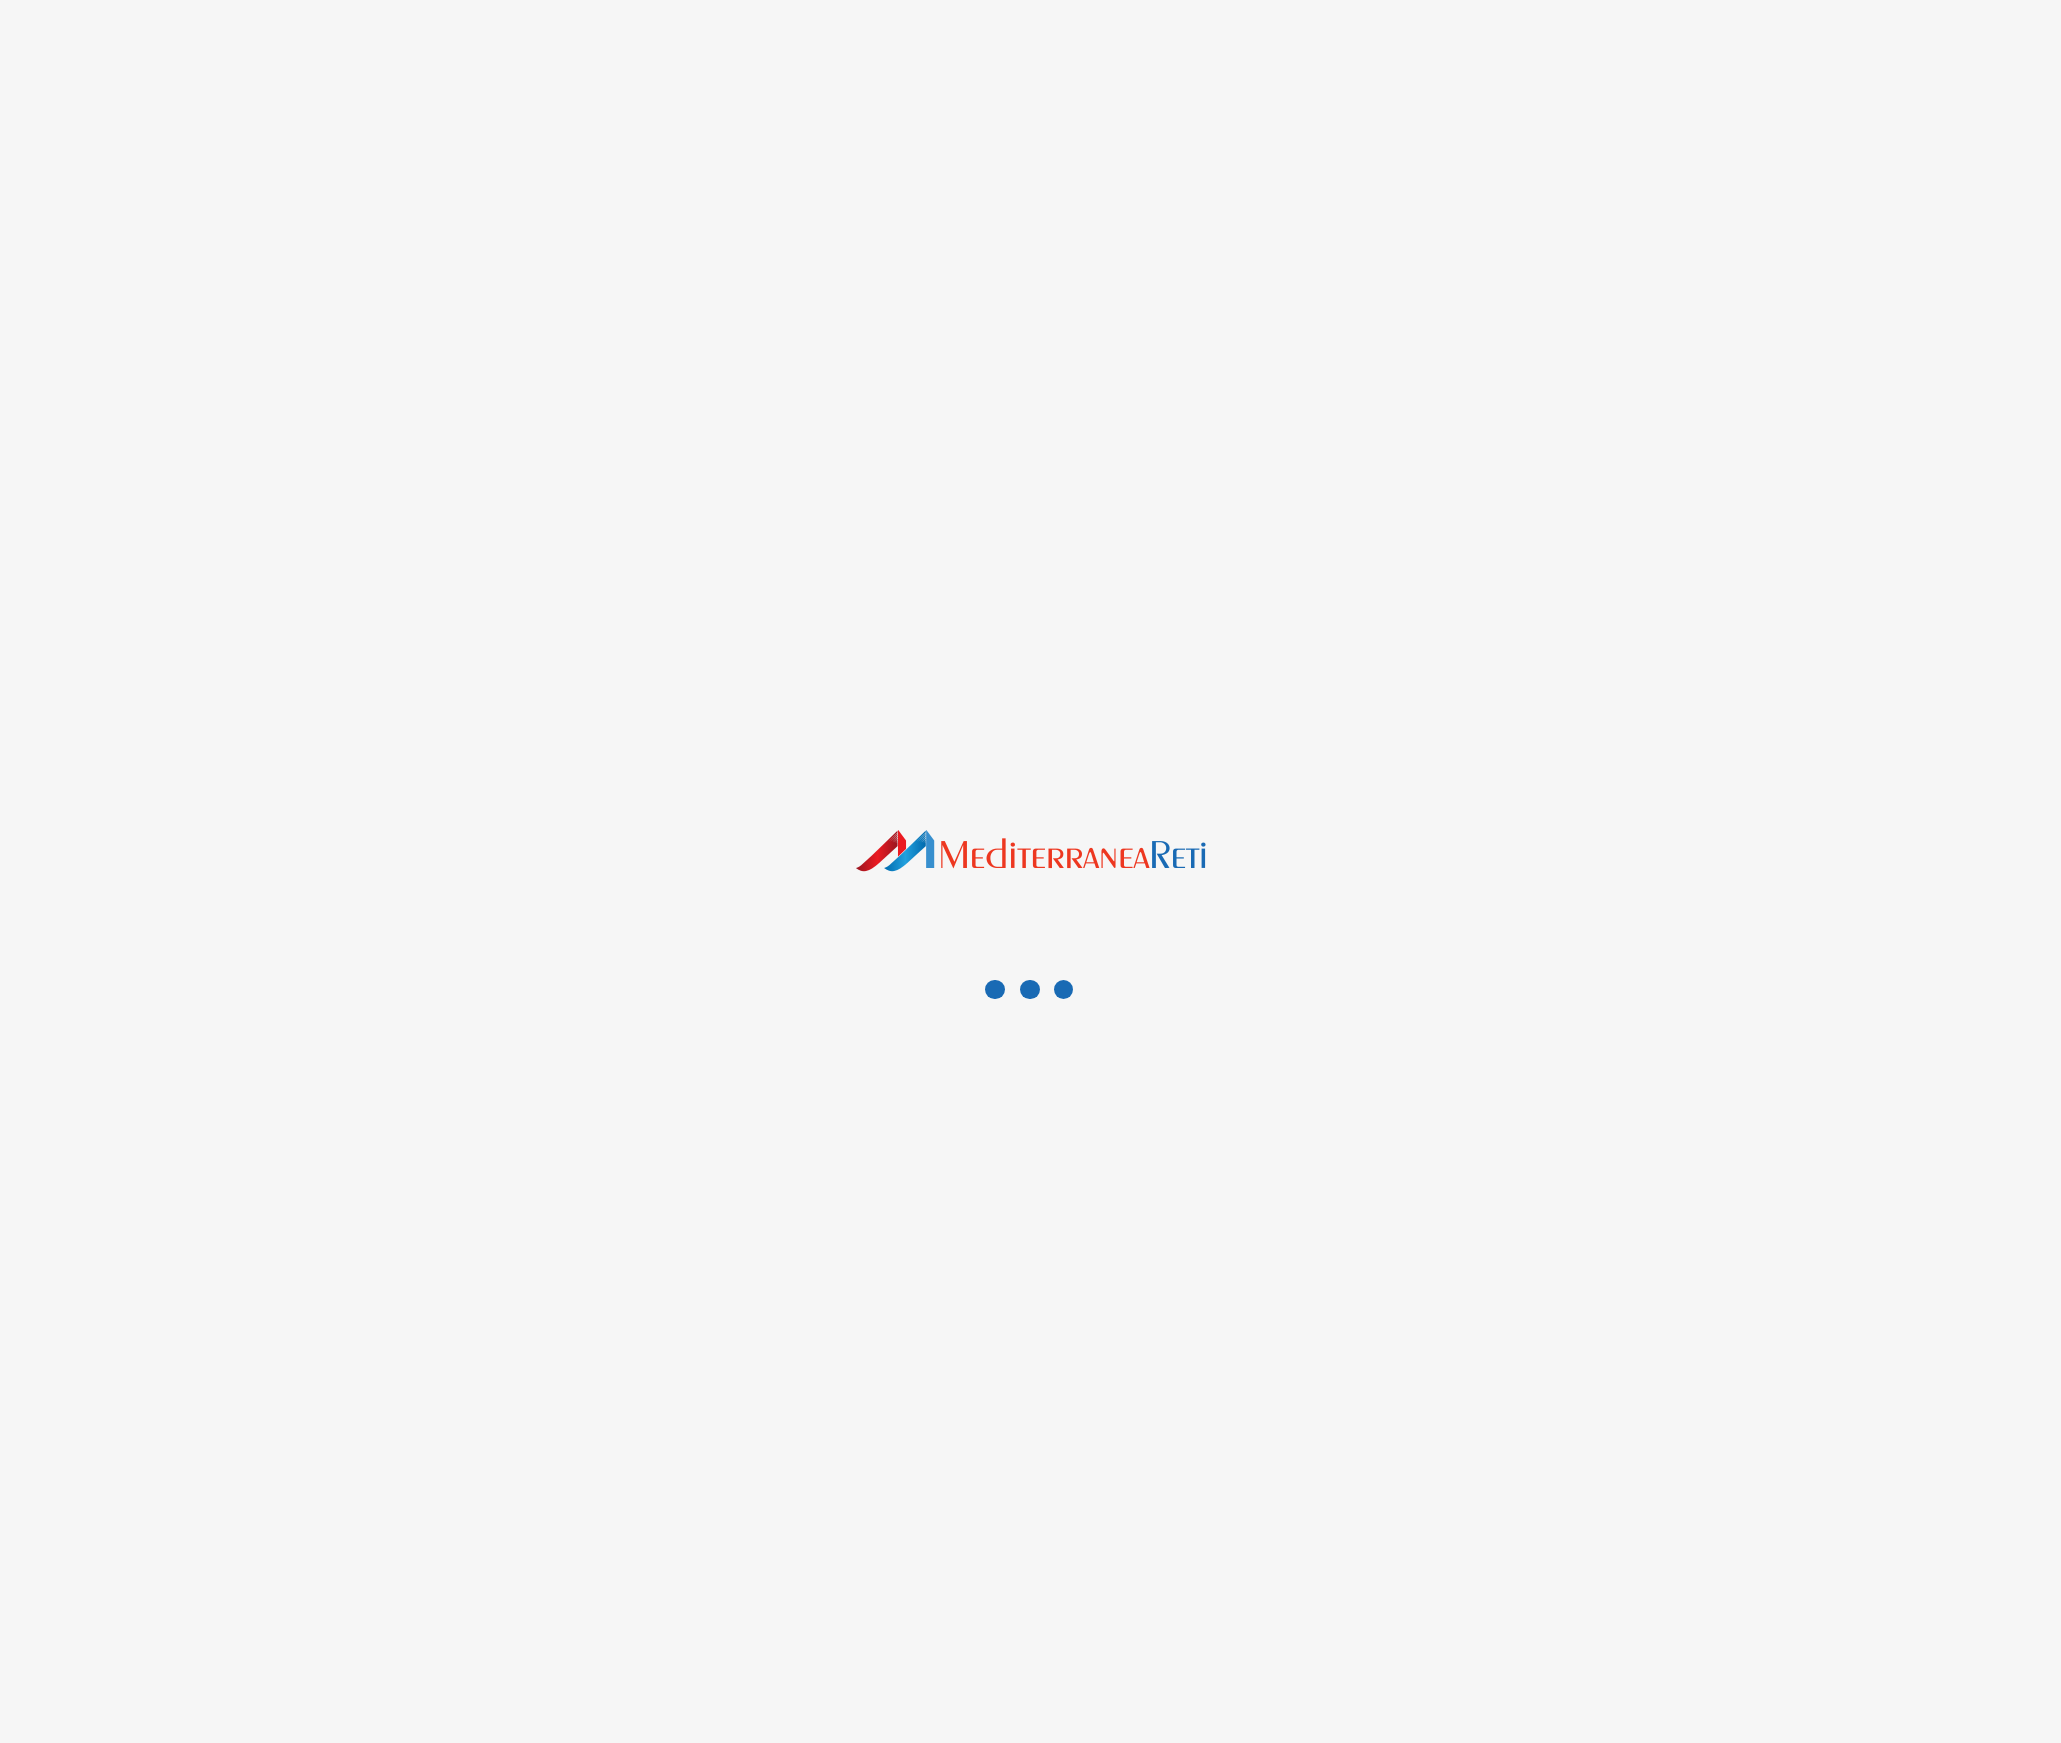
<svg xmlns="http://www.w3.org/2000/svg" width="2061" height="1743">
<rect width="100%" height="100%" fill="#f6f6f6"/>
<image x="856" y="830" width="350" height="42" href="media/1.png"/>
<rect x="985" y="980" width="20" height="19" rx="9.5" fill="#196ab4"/>
<rect x="1020" y="980" width="20" height="19" rx="9.5" fill="#196ab4"/>
<circle cx="1063.5" cy="989.5" r="9.5" fill="#196ab4"/>
</svg>
